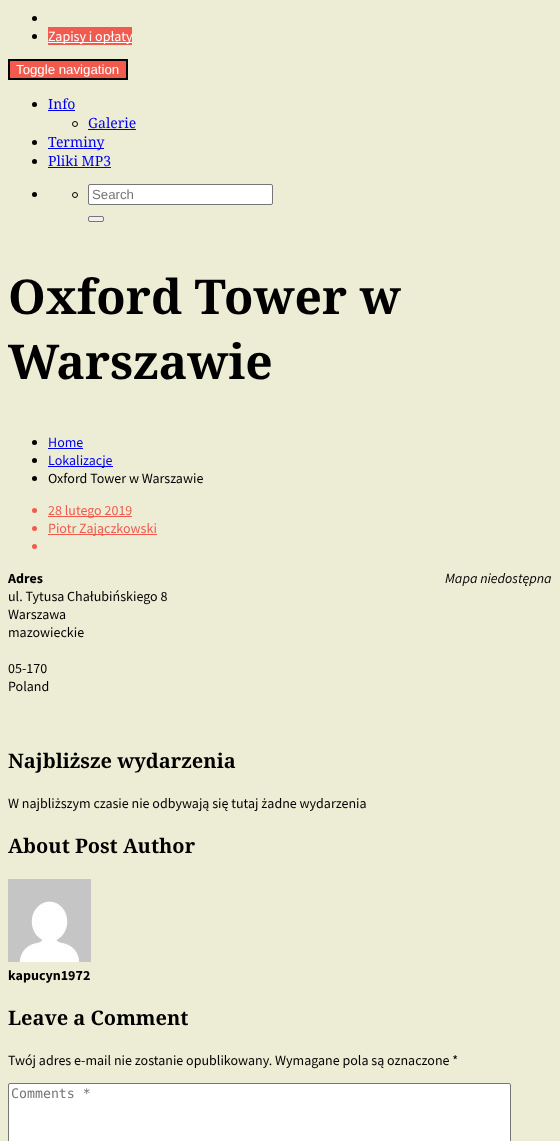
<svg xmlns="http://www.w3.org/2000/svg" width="560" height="1141">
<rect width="100%" height="100%" fill="#ededd5"/>
<circle cx="34.5" cy="18.5" r="2.5" fill="#000"/>
<circle cx="34.5" cy="36.5" r="2.5" fill="#000"/>
<rect x="48" y="27" width="84" height="18" fill="#f15b4e"/>
<rect x="48" y="42" width="84" height="1" fill="#fff"/>
<text x="48" y="41" style="font-family:Source Sans Pro;font-size:14px;fill:#fff">Zapisy i opłaty</text>
<rect x="9" y="60" width="118" height="19" fill="#f15b4e" stroke="#000" stroke-width="2"/>
<text x="16" y="74" style="font-family:Liberation Sans;font-size:13.25px;fill:#fff">Toggle navigation</text>
<circle cx="34.5" cy="104.5" r="2.5" fill="#000"/>
<text x="48" y="109" style="font-family:Noto Serif;font-size:14px;fill:#00e">Info</text>
<rect x="48" y="110" width="27" height="1" fill="#00e"/>
<circle cx="75" cy="124" r="2.5" fill="none" stroke="#000"/>
<text x="88" y="128" style="font-family:Noto Serif;font-size:14px;fill:#00e">Galerie</text>
<rect x="88" y="129" width="48" height="1" fill="#00e"/>
<circle cx="34.5" cy="142.5" r="2.5" fill="#000"/>
<rect x="48" y="148" width="56" height="1" fill="#00e"/>
<text x="48" y="147" style="font-family:Noto Serif;font-size:14px;fill:#00e">Terminy</text>
<circle cx="34.5" cy="161.5" r="2.5" fill="#000"/>
<text x="48" y="166" style="font-family:Noto Serif;font-size:14px;fill:#00e">Pliki MP3</text>
<rect x="48" y="167" width="63" height="1" fill="#00e"/>
<circle cx="34.5" cy="194.5" r="2.5" fill="#000"/>
<circle cx="75" cy="195" r="2.5" fill="none" stroke="#000"/>
<rect x="88.5" y="184.5" width="184" height="20" rx="1.5" fill="#fff" stroke="#767676"/>
<text x="92" y="199" style="font-family:Liberation Sans;font-size:13.25px;fill:#757575">Search</text>
<rect x="88.5" y="216.5" width="15" height="5" rx="1.5" fill="#efefef" stroke="#767676"/>
<text x="8" y="314" style="font-family:Noto Serif;font-size:48px;font-weight:bold;fill:#000">Oxford Tower w</text>
<text x="8" y="379" style="font-family:Noto Serif;font-size:48px;font-weight:bold;fill:#000">Warszawie</text>
<circle cx="34.5" cy="442.5" r="2.5" fill="#000"/>
<text x="48" y="447" style="font-family:Source Sans Pro;font-size:14px;fill:#00e">Home</text>
<rect x="48" y="448" width="35" height="1" fill="#00e"/>
<circle cx="34.5" cy="460.5" r="2.5" fill="#000"/>
<rect x="48" y="466" width="65" height="1" fill="#00e"/>
<text x="48" y="465" style="font-family:Source Sans Pro;font-size:14px;fill:#00e">Lokalizacje</text>
<circle cx="34.5" cy="478.5" r="2.5" fill="#000"/>
<text x="48" y="483" style="font-family:Source Sans Pro;font-size:14px;fill:#000">Oxford Tower w Warszawie</text>
<circle cx="34.5" cy="510.5" r="2.5" fill="#f15b4e"/>
<rect x="48" y="516" width="84" height="1" fill="#f15b4e"/>
<text x="48" y="515" style="font-family:Source Sans Pro;font-size:14px;fill:#f15b4e">28 lutego 2019</text>
<circle cx="34.5" cy="528.5" r="2.5" fill="#f15b4e"/>
<rect x="48" y="534" width="109" height="1" fill="#f15b4e"/>
<text x="48" y="533" style="font-family:Source Sans Pro;font-size:14px;fill:#f15b4e">Piotr Zajączkowski</text>
<circle cx="34.5" cy="546.5" r="2.5" fill="#f15b4e"/>
<text x="8" y="583" style="font-family:Source Sans Pro;font-size:14px;font-weight:bold;fill:#000">Adres</text>
<text x="8" y="601" style="font-family:Source Sans Pro;font-size:14px;fill:#000">ul. Tytusa Chałubińskiego 8</text>
<text x="8" y="619" style="font-family:Source Sans Pro;font-size:14px;fill:#000">Warszawa</text>
<text x="8" y="637" style="font-family:Source Sans Pro;font-size:14px;fill:#000">mazowieckie</text>
<text x="8" y="673" style="font-family:Source Sans Pro;font-size:14px;fill:#000">05-170</text>
<text x="8" y="691" style="font-family:Source Sans Pro;font-size:14px;fill:#000">Poland</text>
<text x="445" y="583" style="font-family:Source Sans Pro;font-size:14px;font-style:italic;fill:#000">Mapa niedostępna</text>
<text x="8" y="768" style="font-family:Noto Serif;font-size:20px;font-weight:bold;fill:#000">Najbliższe wydarzenia</text>
<text x="8" y="808" style="font-family:Source Sans Pro;font-size:14px;fill:#000">W najbliższym czasie nie odbywają się tutaj żadne wydarzenia</text>
<text x="8" y="853" style="font-family:Noto Serif;font-size:20px;font-weight:bold;fill:#000">About Post Author</text>
<image x="8" y="879" width="83" height="83" href="media/1.png"/>
<text x="8" y="980" style="font-family:Source Sans Pro;font-size:14px;font-weight:bold;fill:#000">kapucyn1972</text>
<text x="8" y="1025" style="font-family:Noto Serif;font-size:20px;font-weight:bold;fill:#000">Leave a Comment</text>
<text x="8" y="1065" style="font-family:Source Sans Pro;font-size:14px;fill:#000">Twój adres e-mail nie zostanie opublikowany. Wymagane pola są oznaczone *</text>
<rect x="8.5" y="1083.5" width="502" height="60" rx="1.5" fill="#fff" stroke="#767676"/>
<text x="11" y="1098" style="font-family:DejaVu Sans Mono;font-size:13.25px;fill:#757575">Comments *</text>
</svg>
